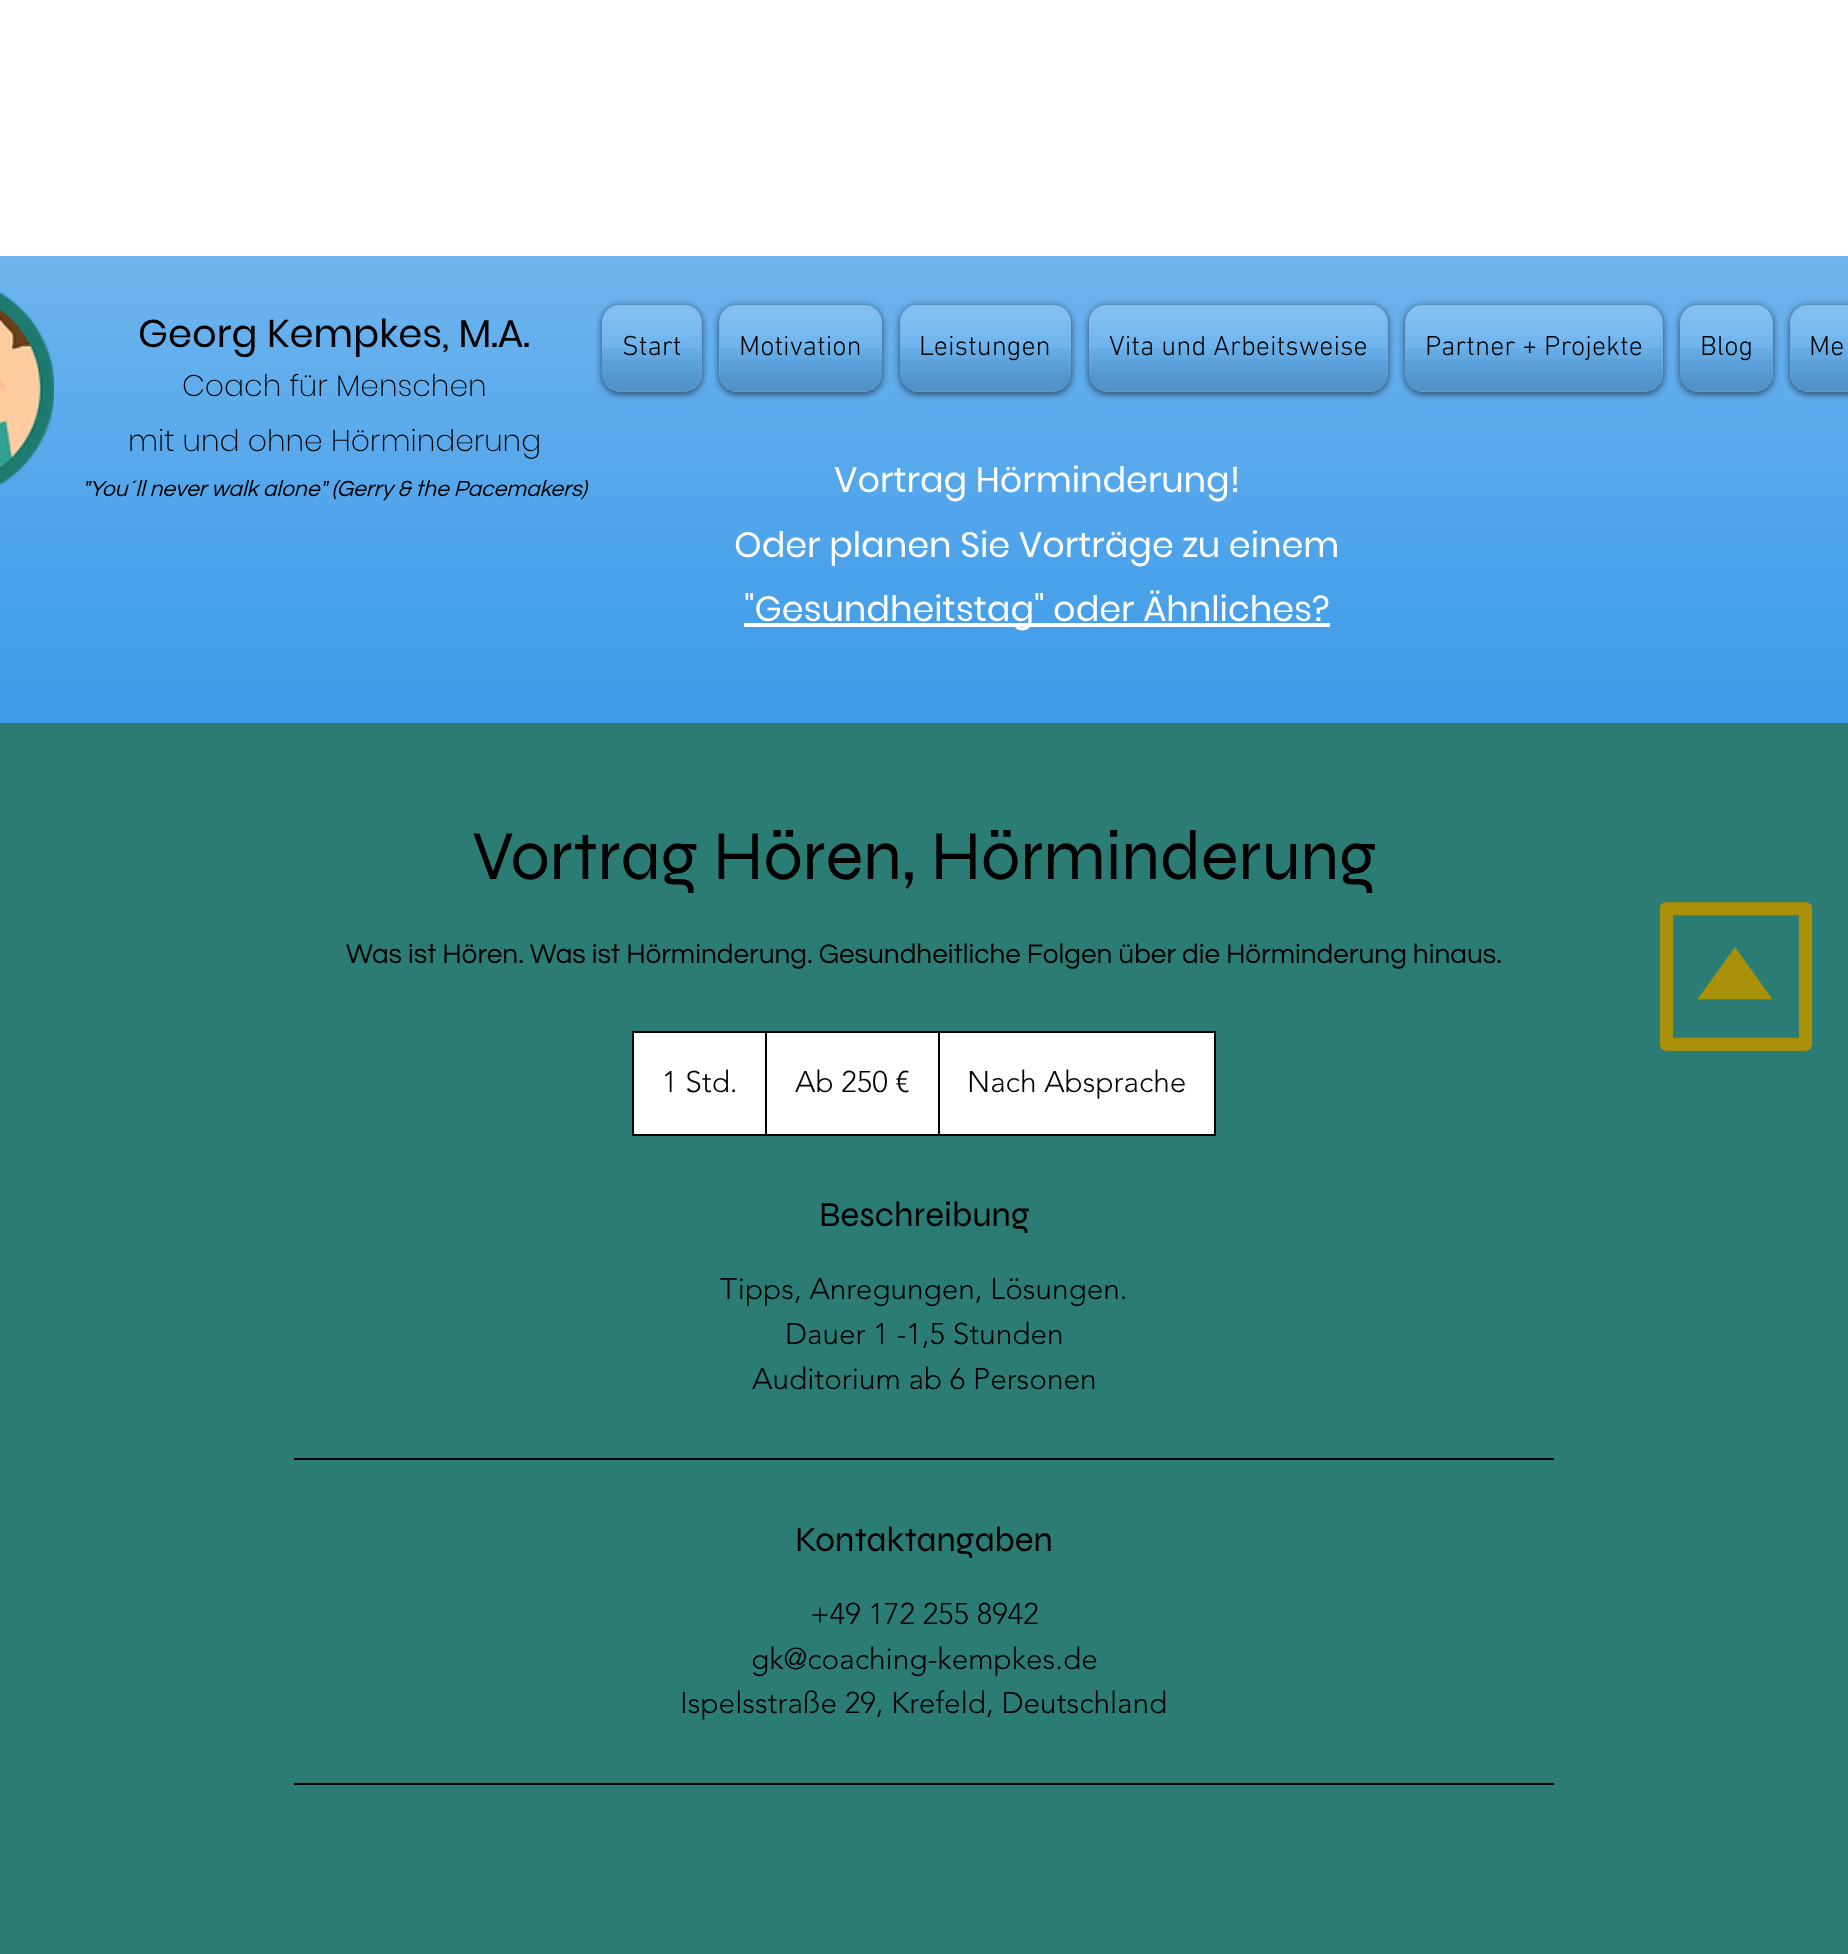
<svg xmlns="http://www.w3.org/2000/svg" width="1848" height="1954">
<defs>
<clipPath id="clip1"><path d="M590 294h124v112h-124zm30 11h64c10 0 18 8 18 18v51c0 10-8 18-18 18h-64c-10 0-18-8-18-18v-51c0-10 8-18 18-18z" clip-rule="evenodd"/></clipPath>
<clipPath id="clip2"><path d="M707 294h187v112h-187zm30 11h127c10 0 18 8 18 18v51c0 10-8 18-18 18h-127c-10 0-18-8-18-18v-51c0-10 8-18 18-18z" clip-rule="evenodd"/></clipPath>
<clipPath id="clip3"><path d="M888 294h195v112h-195zm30 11h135c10 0 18 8 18 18v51c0 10-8 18-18 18h-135c-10 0-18-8-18-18v-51c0-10 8-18 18-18z" clip-rule="evenodd"/></clipPath>
<clipPath id="clip4"><path d="M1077 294h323v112h-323zm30 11h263c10 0 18 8 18 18v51c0 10-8 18-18 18h-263c-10 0-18-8-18-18v-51c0-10 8-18 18-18z" clip-rule="evenodd"/></clipPath>
<clipPath id="clip5"><path d="M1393 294h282v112h-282zm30 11h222c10 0 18 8 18 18v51c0 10-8 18-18 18h-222c-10 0-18-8-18-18v-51c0-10 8-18 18-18z" clip-rule="evenodd"/></clipPath>
<clipPath id="clip6"><path d="M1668 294h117v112h-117zm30 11h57c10 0 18 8 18 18v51c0 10-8 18-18 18h-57c-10 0-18-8-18-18v-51c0-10 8-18 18-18z" clip-rule="evenodd"/></clipPath>
<clipPath id="clip7"><path d="M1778 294h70v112h-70zm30 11h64c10 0 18 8 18 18v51c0 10-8 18-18 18h-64c-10 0-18-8-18-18v-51c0-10 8-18 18-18z" clip-rule="evenodd"/></clipPath>
</defs>
<rect width="100%" height="100%" fill="#fff"/>
<rect y="256" width="1848" height="467" fill="#3d9be9"/>
<image x="0" y="256" width="1848" height="443" href="media/1.png"/>
<image x="0" y="291" width="54" height="195" href="media/2.png"/>
<text x="138" y="347" style="font-family:Poppins;font-size:38.5px;fill:#000">Georg Kempkes, M.A.</text>
<text x="182" y="396" style="font-family:Poppins;font-size:29.75px;font-weight:200;fill:#000">Coach für Menschen</text>
<text x="128" y="451" style="font-family:Poppins;font-size:29.75px;font-weight:200;fill:#000">mit und ohne Hörminderung</text>
<text x="82" y="496" style="font-family:Questrial;font-size:22.75px;font-style:italic;fill:#000">"You´ll never walk alone" (Gerry &amp; the Pacemakers)</text>
<g clip-path="url(#clip1)">
<rect x="602" y="306" width="100" height="88" rx="18" fill="#00000099" filter="blur(3.5px)"/>
</g>
<image x="602" y="305" width="100" height="54" href="media/3.png"/>
<image x="602" y="348" width="100" height="44" href="media/4.png"/>
<text x="622" y="355" style="font-family:'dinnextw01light';font-size:28px;font-weight:300;fill:#000">Start</text>
<g clip-path="url(#clip2)">
<rect x="719" y="306" width="163" height="88" rx="18" fill="#00000099" filter="blur(3.5px)"/>
</g>
<image x="719" y="305" width="163" height="54" href="media/5.png"/>
<image x="719" y="348" width="163" height="44" href="media/6.png"/>
<text x="739" y="355" style="font-family:'dinnextw01light';font-size:28px;font-weight:300;fill:#000">Motivation</text>
<g clip-path="url(#clip3)">
<rect x="900" y="306" width="171" height="88" rx="18" fill="#00000099" filter="blur(3.5px)"/>
</g>
<image x="900" y="305" width="171" height="54" href="media/7.png"/>
<image x="900" y="348" width="171" height="44" href="media/8.png"/>
<text x="919" y="355" style="font-family:'dinnextw01light';font-size:28px;font-weight:300;fill:#000">Leistungen</text>
<g clip-path="url(#clip4)">
<rect x="1089" y="306" width="299" height="88" rx="18" fill="#00000099" filter="blur(3.5px)"/>
</g>
<image x="1089" y="305" width="299" height="54" href="media/9.png"/>
<image x="1089" y="348" width="299" height="44" href="media/10.png"/>
<text x="1109" y="355" style="font-family:'dinnextw01light';font-size:28px;font-weight:300;fill:#000">Vita und Arbeitsweise</text>
<g clip-path="url(#clip5)">
<rect x="1405" y="306" width="258" height="88" rx="18" fill="#00000099" filter="blur(3.5px)"/>
</g>
<image x="1405" y="305" width="257" height="54" href="media/11.png"/>
<image x="1405" y="348" width="257" height="44" href="media/12.png"/>
<text x="1425" y="355" style="font-family:'dinnextw01light';font-size:28px;font-weight:300;fill:#000">Partner + Projekte</text>
<g clip-path="url(#clip6)">
<rect x="1680" y="306" width="93" height="88" rx="18" fill="#00000099" filter="blur(3.5px)"/>
</g>
<image x="1680" y="305" width="93" height="54" href="media/13.png"/>
<image x="1680" y="348" width="93" height="44" href="media/14.png"/>
<text x="1700" y="355" style="font-family:'dinnextw01light';font-size:28px;font-weight:300;fill:#000">Blog</text>
<g clip-path="url(#clip7)">
<rect x="1790" y="306" width="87" height="88" rx="18" fill="#00000099" filter="blur(3.5px)"/>
</g>
<image x="1790" y="305" width="58" height="54" href="media/15.png"/>
<image x="1790" y="348" width="58" height="44" href="media/16.png"/>
<text x="1809" y="355" style="font-family:'dinnextw01light';font-size:28px;font-weight:300;fill:#000">Me</text>
<text x="834" y="492" style="font-family:Poppins;font-size:35px;fill:#fff">Vortrag Hörminderung!</text>
<text x="734" y="557" style="font-family:Poppins;font-size:35px;fill:#fff">Oder planen Sie Vorträge zu einem</text>
<rect x="744" y="623" width="586" height="4" fill="#fff"/>
<text x="744" y="621" style="font-family:Poppins;font-size:35px;fill:#fff">"Gesundheitstag" oder Ähnliches?</text>
<rect y="723" width="1848" height="1231" fill="#2b7c74"/>
<text x="472" y="879" style="font-family:Syne;font-size:70px;fill:#000">Vortrag Hören, Hörminderung</text>
<text x="346" y="963" style="font-family:Questrial;font-size:28px;fill:#000">Was ist Hören. Was ist Hörminderung. Gesundheitliche Folgen über die Hörminderung hinaus.</text>
<rect x="633" y="1032" width="582" height="103" fill="#fff" stroke="#000" stroke-width="2"/>
<text x="662" y="1092" style="font-family:'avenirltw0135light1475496';font-size:29.75px;font-weight:300;fill:#000">1 Std.</text>
<rect x="765" y="1033" width="2" height="101" fill="#000"/>
<text x="795" y="1092" style="font-family:'avenirltw0135light1475496';font-size:29.75px;font-weight:300;fill:#000">Ab 250 €</text>
<rect x="938" y="1033" width="2" height="101" fill="#000"/>
<text x="967" y="1092" style="font-family:'avenirltw0135light1475496';font-size:29.75px;font-weight:300;fill:#000">Nach Absprache</text>
<text x="819" y="1226" style="font-family:Syne;font-size:35px;fill:#000">Beschreibung</text>
<text x="720" y="1299" style="font-family:'avenirltw0135light1475496';font-size:29.75px;font-weight:300;fill:#000">Tipps, Anregungen, Lösungen.</text>
<text x="785" y="1344" style="font-family:'avenirltw0135light1475496';font-size:29.75px;font-weight:300;fill:#000">Dauer 1 -1,5 Stunden</text>
<text x="752" y="1389" style="font-family:'avenirltw0135light1475496';font-size:29.75px;font-weight:300;fill:#000">Auditorium ab 6 Personen</text>
<rect x="294" y="1458" width="1260" height="2" fill="#000"/>
<text x="795" y="1551" style="font-family:Syne;font-size:35px;fill:#000">Kontaktangaben</text>
<text x="810" y="1624" style="font-family:'avenirltw0135light1475496';font-size:29.75px;font-weight:300;fill:#000">+49 172 255 8942</text>
<text x="751" y="1669" style="font-family:'avenirltw0135light1475496';font-size:29.75px;font-weight:300;fill:#000">gk@coaching-kempkes.de</text>
<text x="680" y="1713" style="font-family:'avenirltw0135light1475496';font-size:29.75px;font-weight:300;fill:#000">Ispelsstraße 29, Krefeld, Deutschland</text>
<rect x="294" y="1783" width="1260" height="2" fill="#000"/>
<image x="1659" y="902" width="154" height="149" href="media/17.png"/>
</svg>
